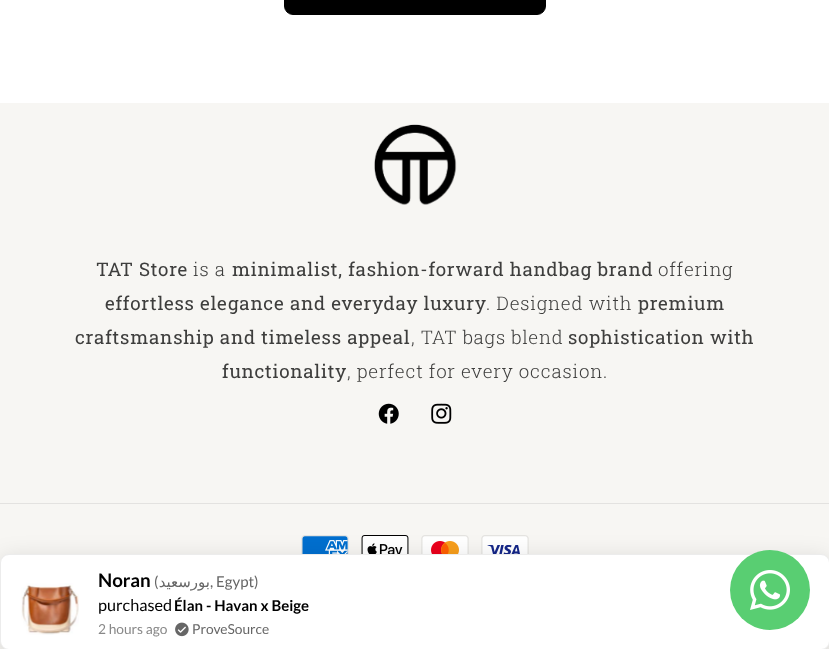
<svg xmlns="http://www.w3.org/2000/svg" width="829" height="649">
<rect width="100%" height="100%" fill="#fff"/>
<rect x="284.5" y="-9.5" width="261" height="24" rx="8.5" fill="#000" stroke="#000"/>
<rect y="103" width="829" height="546" fill="#f7f6f3"/>
<image x="374" y="124" width="83" height="81" href="media/1.png"/>
<text x="96" y="276" style="font-family:Roboto Slab;font-size:18.75px;letter-spacing:0.75px;fill:#3e3e3d">TAT Store</text>
<text x="193" y="276" style="font-family:Roboto Slab;font-size:18.75px;font-weight:300;letter-spacing:0.75px;fill:#3e3e3d">is a</text>
<text x="232" y="276" style="font-family:Roboto Slab;font-size:18.75px;letter-spacing:0.75px;fill:#3e3e3d">minimalist, fashion-forward handbag brand</text>
<text x="658" y="276" style="font-family:Roboto Slab;font-size:18.75px;font-weight:300;letter-spacing:0.75px;fill:#3e3e3d">offering</text>
<text x="105" y="310" style="font-family:Roboto Slab;font-size:18.75px;letter-spacing:0.75px;fill:#3e3e3d">effortless elegance and everyday luxury</text>
<text x="486" y="310" style="font-family:Roboto Slab;font-size:18.75px;font-weight:300;letter-spacing:0.75px;fill:#3e3e3d">. Designed with</text>
<text x="638" y="310" style="font-family:Roboto Slab;font-size:18.75px;letter-spacing:0.75px;fill:#3e3e3d">premium</text>
<text x="75" y="344" style="font-family:Roboto Slab;font-size:18.75px;letter-spacing:0.75px;fill:#3e3e3d">craftsmanship and timeless appeal</text>
<text x="411" y="344" style="font-family:Roboto Slab;font-size:18.75px;font-weight:300;letter-spacing:0.75px;fill:#3e3e3d">, TAT bags blend</text>
<text x="568" y="344" style="font-family:Roboto Slab;font-size:18.75px;letter-spacing:0.75px;fill:#3e3e3d">sophistication with</text>
<text x="222" y="378" style="font-family:Roboto Slab;font-size:18.75px;letter-spacing:0.75px;fill:#3e3e3d">functionality</text>
<text x="347" y="378" style="font-family:Roboto Slab;font-size:18.75px;font-weight:300;letter-spacing:0.75px;fill:#3e3e3d">, perfect for every occasion.</text>
<image x="378" y="403" width="21" height="21" href="media/2.png"/>
<image x="431" y="403" width="21" height="21" href="media/3.png"/>
<rect y="503" width="829" height="1" fill="#e3e2e0"/>
<image x="301" y="535" width="48" height="19" href="media/4.png"/>
<image x="361" y="535" width="48" height="19" href="media/5.png"/>
<image x="421" y="535" width="48" height="19" href="media/6.png"/>
<image x="481" y="535" width="48" height="19" href="media/7.png"/>
<rect y="560" width="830" height="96" rx="9" fill="#00000026" filter="blur(12.5px)"/>
<rect x="0.5" y="554.5" width="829" height="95" rx="8.5" fill="#fff" stroke="#ececec"/>
<image x="21" y="583" width="58" height="52" href="media/8.png"/>
<text x="98" y="587" style="font-family:Lato;font-size:18.75px;font-weight:bold;fill:#000">Noran</text>
<text x="154" y="587" style="font-family:Lato;font-size:15px;fill:#666">(</text>
<text x="210" y="587" style="font-family:DejaVu Sans;font-size:15px;direction:rtl;fill:#666">بورسعيد</text>
<text x="210" y="587" style="font-family:Lato;font-size:15px;fill:#666">, Egypt)</text>
<text x="98" y="611" style="font-family:Lato;font-size:16.25px;fill:#000">purchased</text>
<text x="174" y="611" style="font-family:Lato;font-size:15px;font-weight:bold;fill:#000">Élan - Havan x Beige</text>
<text x="98" y="634" style="font-family:Lato;font-size:13.75px;fill:#888">2 hours ago</text>
<image x="175" y="622" width="14" height="15" href="media/9.png"/>
<text x="192" y="634" style="font-family:Lato;font-size:13.75px;fill:#666">ProveSource</text>
<circle cx="770" cy="590" r="40" fill="#59ce72"/>
<image x="750" y="570" width="40" height="40" href="media/10.png"/>
</svg>
